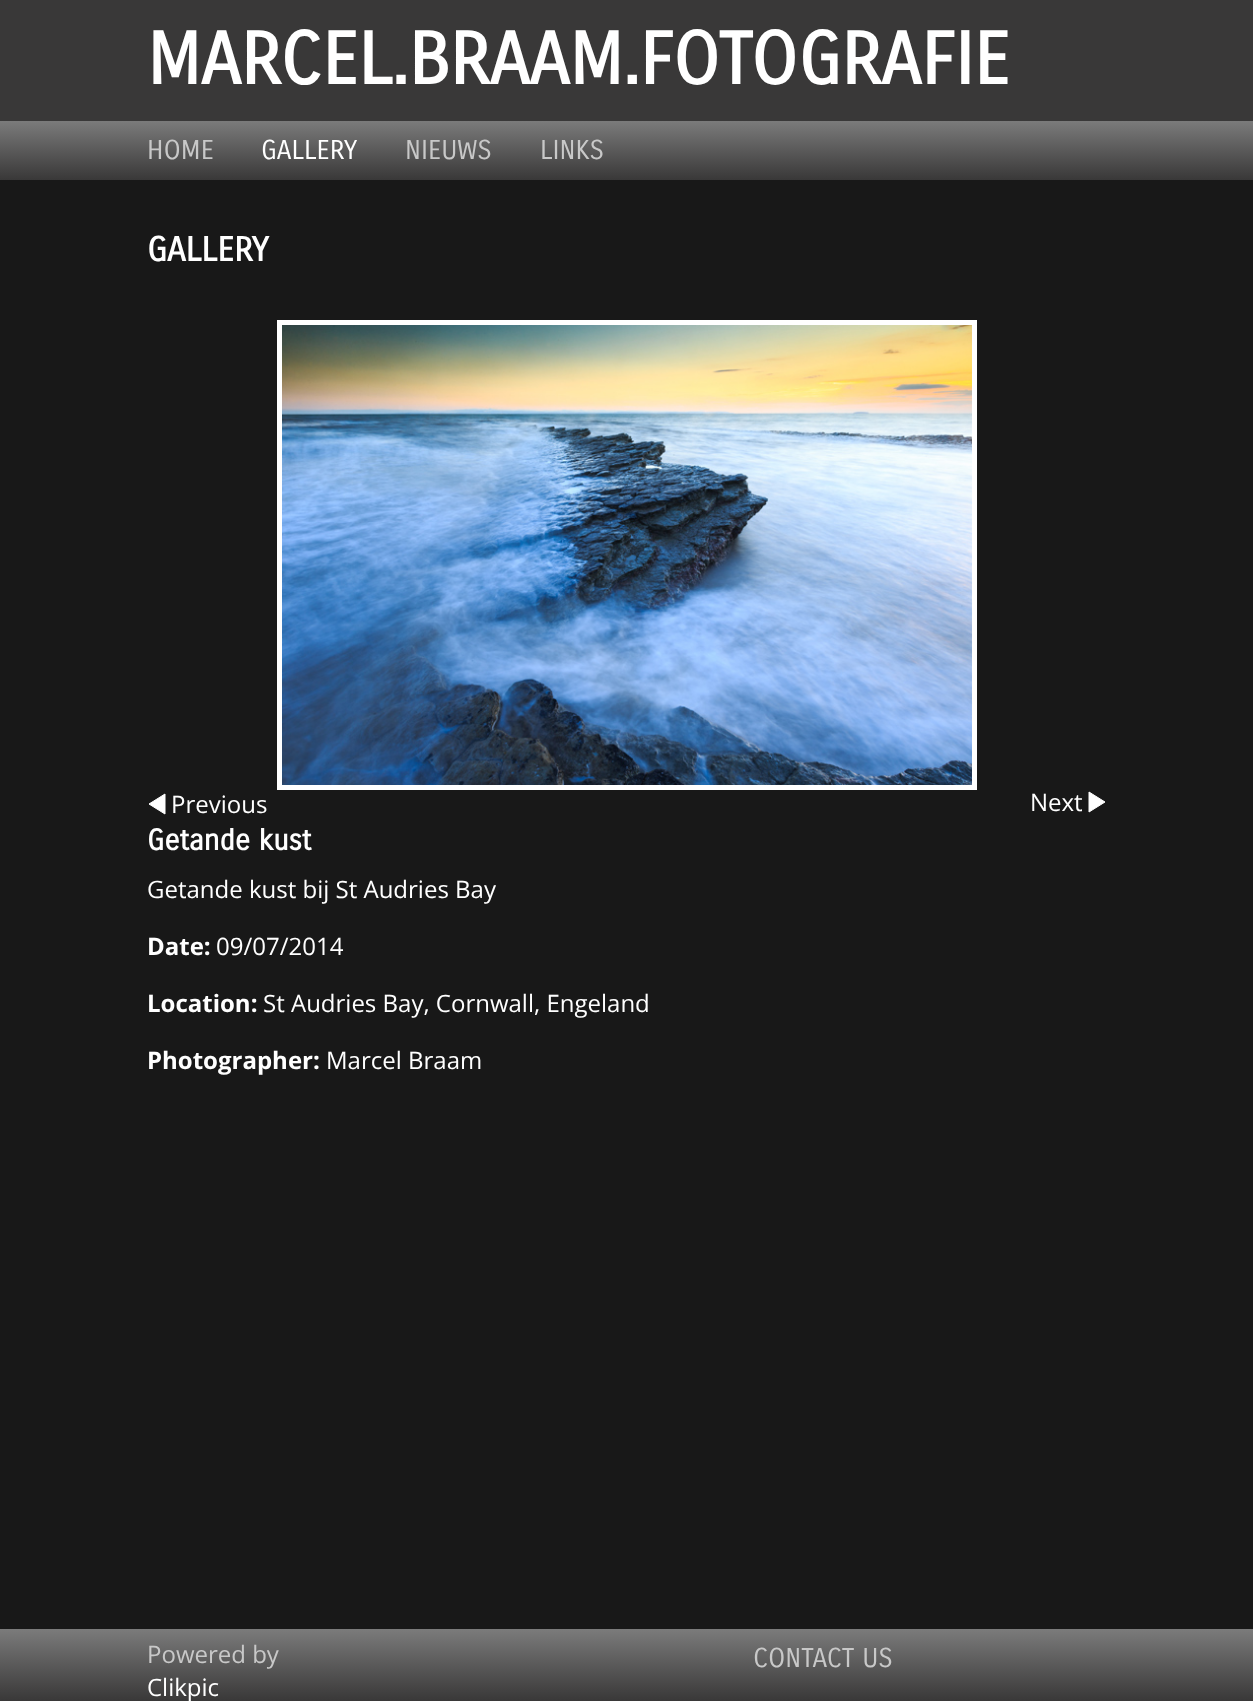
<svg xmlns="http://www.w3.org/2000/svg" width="1253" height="1701">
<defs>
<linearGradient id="g1" gradientUnits="userSpaceOnUse" x1="627" y1="121" x2="627" y2="180"><stop offset="0" stop-color="#7b7b7b"/><stop offset="1" stop-color="#393838"/></linearGradient>
<linearGradient id="g2" gradientUnits="userSpaceOnUse" x1="627" y1="1629" x2="627" y2="1701"><stop offset="0" stop-color="#7b7b7b"/><stop offset="1" stop-color="#393838"/></linearGradient>
</defs>
<rect width="100%" height="100%" fill="#181818"/>
<rect width="1253" height="121" fill="#393838"/>
<text x="147" y="84" style="font-family:Carrois Gothic;font-size:72px;font-weight:bold;fill:#fff">MARCEL.BRAAM.FOTOGRAFIE</text>
<rect y="121" width="1253" height="59" fill="url(#g1)"/>
<text x="147" y="159" style="font-family:Carrois Gothic;font-size:26.5px;fill:#c8c8c8">HOME</text>
<text x="261" y="159" style="font-family:Carrois Gothic;font-size:26.5px;fill:#fff">GALLERY</text>
<text x="405" y="159" style="font-family:Carrois Gothic;font-size:26.5px;fill:#c8c8c8">NIEUWS</text>
<text x="540" y="159" style="font-family:Carrois Gothic;font-size:26.5px;fill:#c8c8c8">LINKS</text>
<text x="147" y="261" style="font-family:Carrois Gothic;font-size:33.5px;font-weight:bold;fill:#fff">GALLERY</text>
<rect x="279.5" y="322.5" width="695" height="465" fill="none" stroke="#fff" stroke-width="5"/>
<image x="282" y="325" width="690" height="460" href="media/1.png"/>
<path d="M165 794v20l-16-10z" fill="#fff" stroke="#fff"/>
<text x="171" y="813" style="font-family:Open Sans;font-size:24px;fill:#fff">Previous</text>
<text x="1030" y="811" style="font-family:Open Sans;font-size:24px;fill:#fff">Next</text>
<path d="M1089 792v20l16-10z" fill="#fff" stroke="#fff"/>
<text x="147" y="850" style="font-family:Carrois Gothic;font-size:28.75px;font-weight:bold;fill:#fff">Getande kust</text>
<text x="147" y="898" style="font-family:Open Sans;font-size:24px;fill:#fff">Getande kust bij St Audries Bay</text>
<text x="147" y="955" style="font-family:Open Sans;font-size:24px;font-weight:bold;fill:#fff">Date:</text>
<text x="216" y="955" style="font-family:Open Sans;font-size:24px;fill:#fff">09/07/2014</text>
<text x="147" y="1012" style="font-family:Open Sans;font-size:24px;font-weight:bold;fill:#fff">Location:</text>
<text x="263" y="1012" style="font-family:Open Sans;font-size:24px;fill:#fff">St Audries Bay, Cornwall, Engeland</text>
<text x="147" y="1069" style="font-family:Open Sans;font-size:24px;font-weight:bold;fill:#fff">Photographer:</text>
<text x="326" y="1069" style="font-family:Open Sans;font-size:24px;fill:#fff">Marcel Braam</text>
<rect y="1629" width="1253" height="72" fill="url(#g2)"/>
<text x="147" y="1663" style="font-family:Open Sans;font-size:24px;fill:#c8c8c8">Powered by</text>
<text x="147" y="1696" style="font-family:Open Sans;font-size:24px;fill:#fff">Clikpic</text>
<text x="753" y="1667" style="font-family:Carrois Gothic;font-size:26.5px;fill:#c8c8c8">CONTACT US</text>
</svg>
